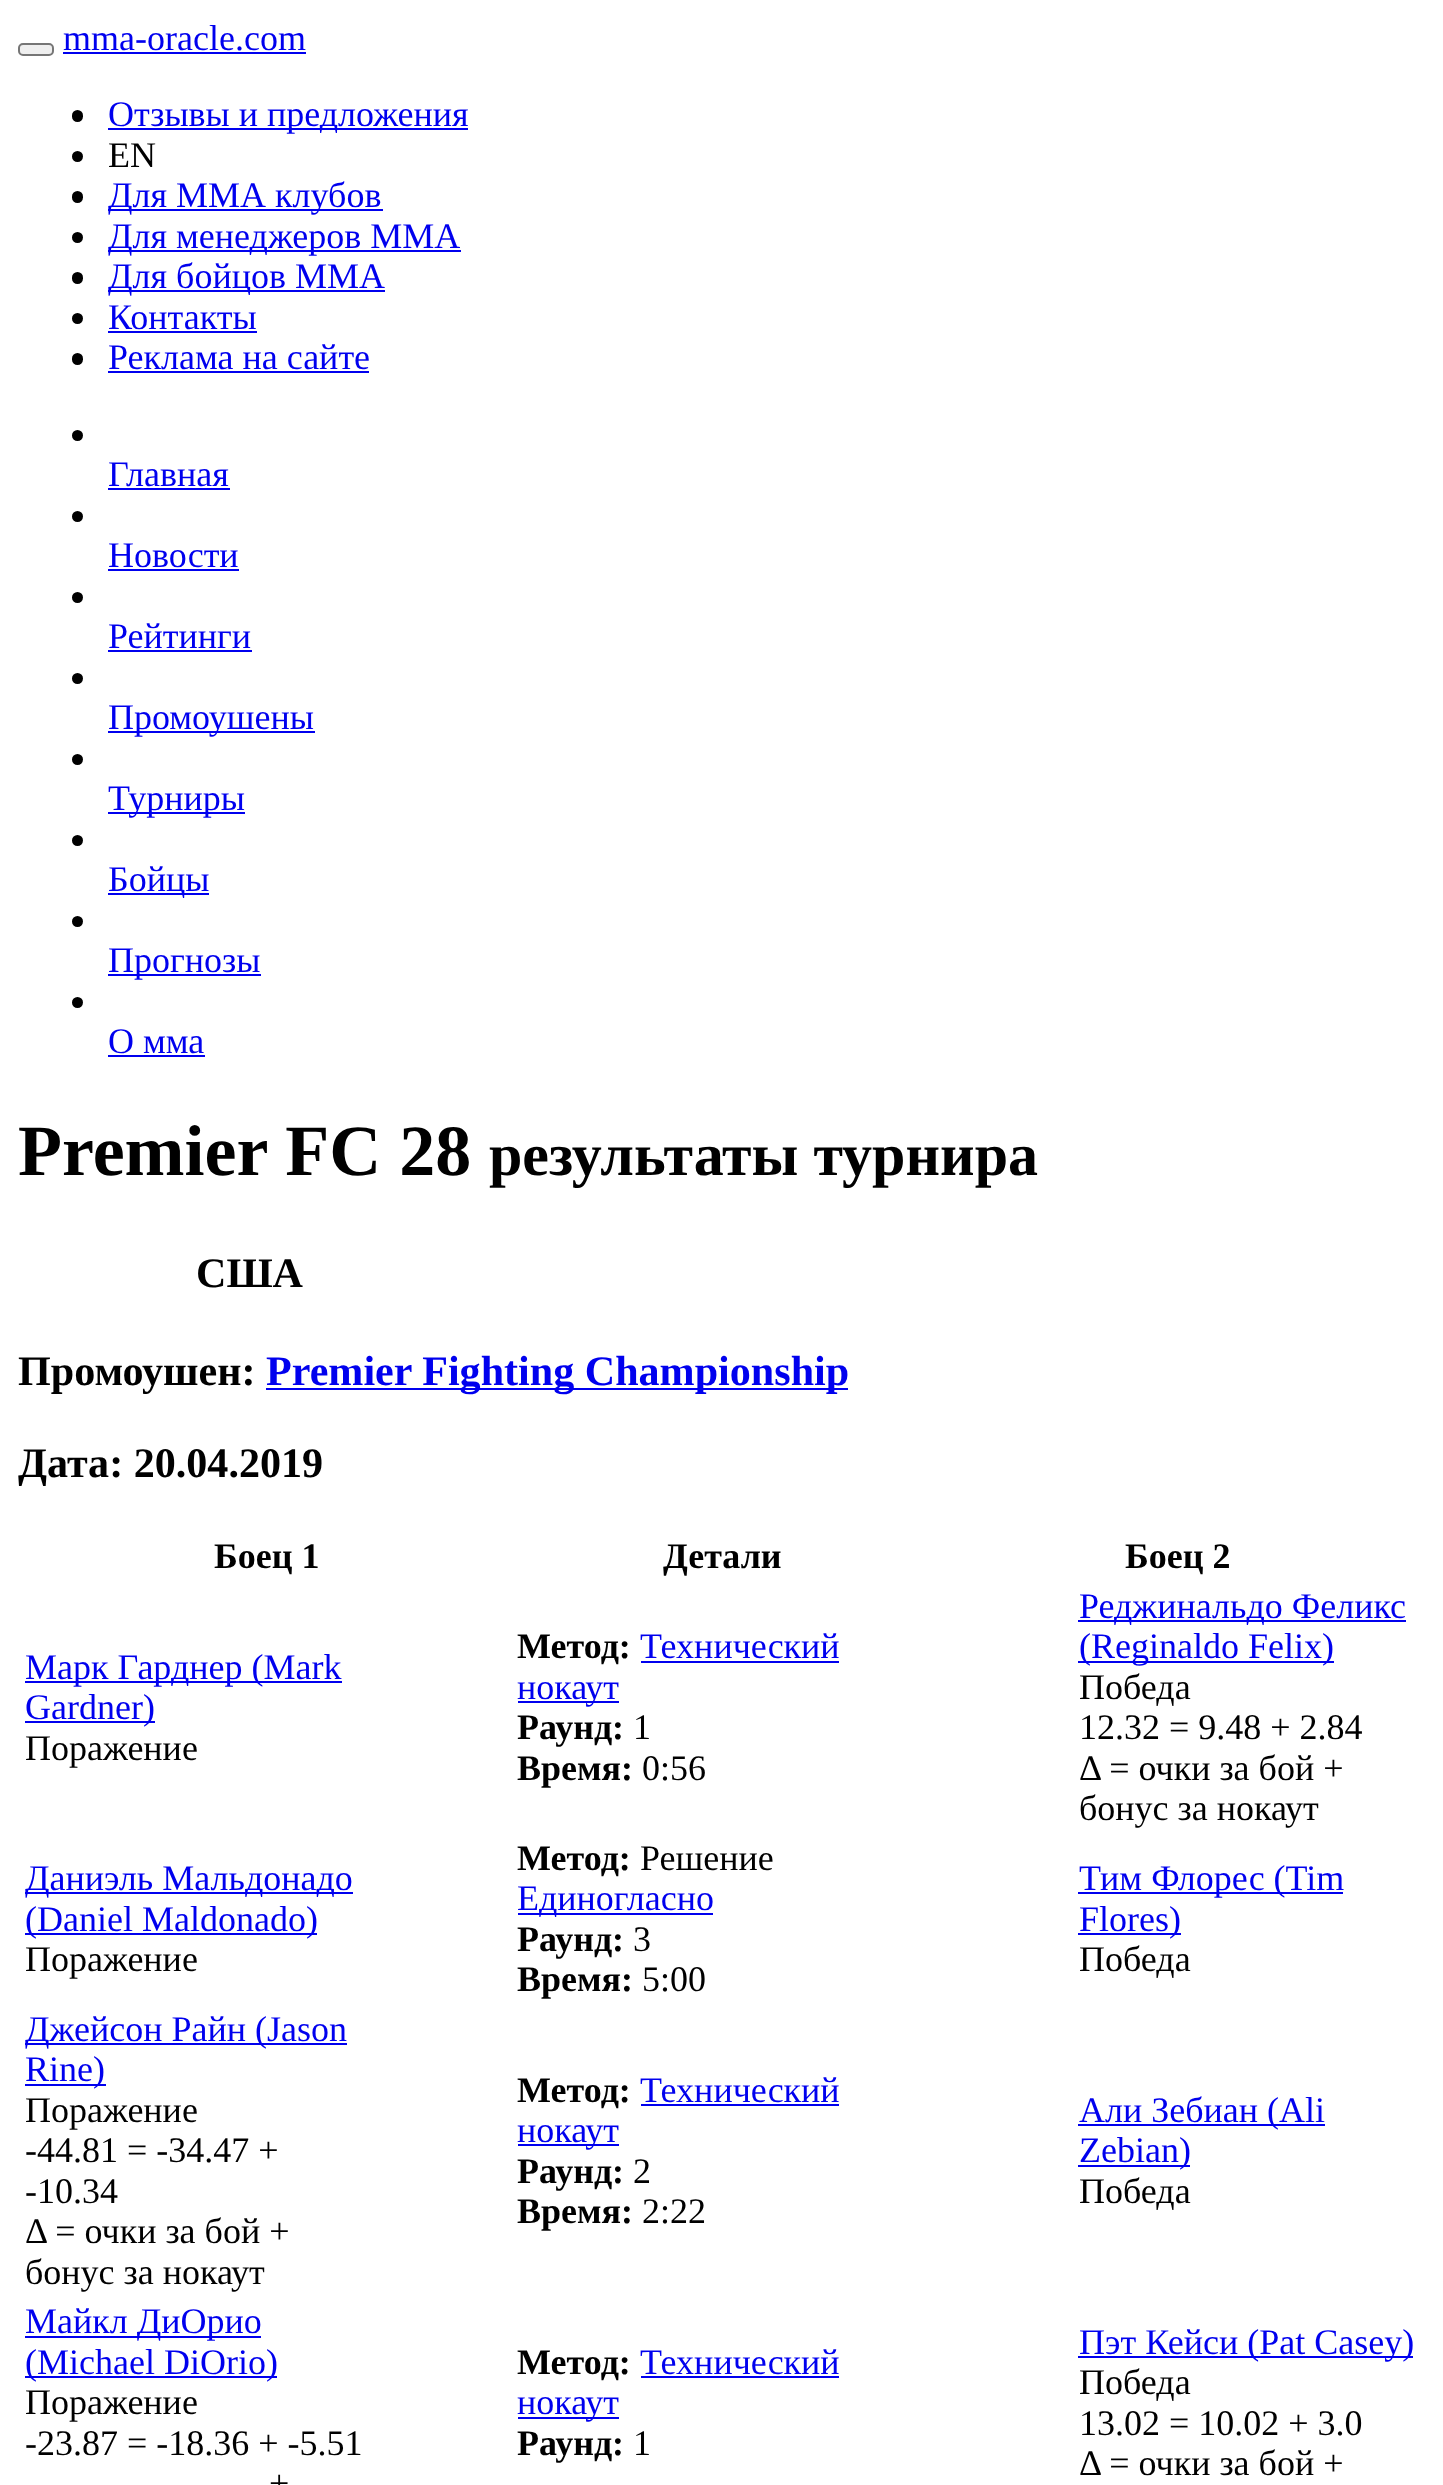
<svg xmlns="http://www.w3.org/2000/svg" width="1443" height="2485">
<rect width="100%" height="100%" fill="#fff"/>
<rect x="19" y="44" width="34" height="11" rx="4" fill="#efefef" stroke="#767676" stroke-width="2"/>
<text x="63" y="50" style="font-family:Liberation Serif;font-size:36px;fill:#00e">mma-oracle.com</text>
<rect x="63" y="52" width="243" height="2" fill="#00e"/>
<rect x="72" y="110" width="11" height="12" rx="5.5" fill="#000"/>
<rect x="108" y="128" width="360" height="2" fill="#00e"/>
<text x="108" y="126" style="font-family:Liberation Serif;font-size:36px;fill:#00e">Отзывы и предложения</text>
<circle cx="77.5" cy="156.5" r="5.5" fill="#000"/>
<text x="108" y="167" style="font-family:Liberation Serif;font-size:36px;fill:#000">EN</text>
<rect x="72" y="191" width="11" height="12" rx="5.5" fill="#000"/>
<rect x="108" y="209" width="275" height="2" fill="#00e"/>
<text x="108" y="207" style="font-family:Liberation Serif;font-size:36px;fill:#00e">Для ММА клубов</text>
<circle cx="77.5" cy="237.5" r="5.5" fill="#000"/>
<rect x="108" y="250" width="353" height="2" fill="#00e"/>
<text x="108" y="248" style="font-family:Liberation Serif;font-size:36px;fill:#00e">Для менеджеров ММА</text>
<rect x="72" y="272" width="11" height="12" rx="5.5" fill="#000"/>
<rect x="108" y="290" width="277" height="2" fill="#00e"/>
<text x="108" y="288" style="font-family:Liberation Serif;font-size:36px;fill:#00e">Для бойцов ММА</text>
<circle cx="77.5" cy="318.5" r="5.5" fill="#000"/>
<text x="108" y="329" style="font-family:Liberation Serif;font-size:36px;fill:#00e">Контакты</text>
<rect x="108" y="331" width="149" height="2" fill="#00e"/>
<rect x="72" y="353" width="11" height="12" rx="5.5" fill="#000"/>
<text x="108" y="369" style="font-family:Liberation Serif;font-size:36px;fill:#00e">Реклама на сайте</text>
<rect x="108" y="371" width="261" height="2" fill="#00e"/>
<circle cx="77.5" cy="435.5" r="5.5" fill="#000"/>
<text x="108" y="486" style="font-family:Liberation Serif;font-size:36px;fill:#00e">Главная</text>
<rect x="108" y="488" width="122" height="2" fill="#00e"/>
<circle cx="77.5" cy="516.5" r="5.5" fill="#000"/>
<text x="108" y="567" style="font-family:Liberation Serif;font-size:36px;fill:#00e">Новости</text>
<rect x="108" y="569" width="131" height="2" fill="#00e"/>
<circle cx="77.5" cy="597.5" r="5.5" fill="#000"/>
<text x="108" y="648" style="font-family:Liberation Serif;font-size:36px;fill:#00e">Рейтинги</text>
<rect x="108" y="650" width="144" height="2" fill="#00e"/>
<circle cx="77.5" cy="678.5" r="5.5" fill="#000"/>
<rect x="108" y="731" width="207" height="2" fill="#00e"/>
<text x="108" y="729" style="font-family:Liberation Serif;font-size:36px;fill:#00e">Промоушены</text>
<circle cx="77.5" cy="759.5" r="5.5" fill="#000"/>
<rect x="108" y="812" width="137" height="2" fill="#00e"/>
<text x="108" y="810" style="font-family:Liberation Serif;font-size:36px;fill:#00e">Турниры</text>
<circle cx="77.5" cy="840.5" r="5.5" fill="#000"/>
<rect x="108" y="893" width="101" height="2" fill="#00e"/>
<text x="108" y="891" style="font-family:Liberation Serif;font-size:36px;fill:#00e">Бойцы</text>
<circle cx="77.5" cy="921.5" r="5.5" fill="#000"/>
<rect x="108" y="974" width="153" height="2" fill="#00e"/>
<text x="108" y="972" style="font-family:Liberation Serif;font-size:36px;fill:#00e">Прогнозы</text>
<circle cx="77.5" cy="1002.5" r="5.5" fill="#000"/>
<text x="108" y="1053" style="font-family:Liberation Serif;font-size:36px;fill:#00e">О мма</text>
<rect x="108" y="1055" width="97" height="2" fill="#00e"/>
<text x="18" y="1175" style="font-family:Liberation Serif;font-size:72px;font-weight:bold;fill:#000">Premier FC 28</text>
<text x="489" y="1175" style="font-family:Liberation Serif;font-size:60px;font-weight:bold;fill:#000">результаты турнира</text>
<text x="196" y="1287" style="font-family:Liberation Serif;font-size:42.1px;font-weight:bold;fill:#000">США</text>
<text x="18" y="1385" style="font-family:Liberation Serif;font-size:42.1px;font-weight:bold;fill:#000">Промоушен:</text>
<rect x="266" y="1388" width="582" height="2" fill="#00e"/>
<text x="266" y="1385" style="font-family:Liberation Serif;font-size:42.1px;font-weight:bold;fill:#00e">Premier Fighting Championship</text>
<text x="18" y="1477" style="font-family:Liberation Serif;font-size:42.1px;font-weight:bold;fill:#000">Дата: 20.04.2019</text>
<text x="214" y="1568" style="font-family:Liberation Serif;font-size:36px;font-weight:bold;fill:#000">Боец 1</text>
<text x="663" y="1568" style="font-family:Liberation Serif;font-size:36px;font-weight:bold;fill:#000">Детали</text>
<text x="1125" y="1568" style="font-family:Liberation Serif;font-size:36px;font-weight:bold;fill:#000">Боец 2</text>
<rect x="25" y="1681" width="317" height="2" fill="#00e"/>
<text x="25" y="1679" style="font-family:Liberation Serif;font-size:36px;fill:#00e">Марк Гарднер (Mark</text>
<rect x="25" y="1721" width="130" height="2" fill="#00e"/>
<text x="25" y="1719" style="font-family:Liberation Serif;font-size:36px;fill:#00e">Gardner)</text>
<text x="25" y="1760" style="font-family:Liberation Serif;font-size:36px;fill:#000">Поражение</text>
<text x="517" y="1658" style="font-family:Liberation Serif;font-size:36px;font-weight:bold;fill:#000">Метод:</text>
<text x="640" y="1658" style="font-family:Liberation Serif;font-size:36px;fill:#00e">Технический</text>
<rect x="641" y="1661" width="198" height="2" fill="#00e"/>
<rect x="518" y="1701" width="101" height="2" fill="#00e"/>
<text x="517" y="1699" style="font-family:Liberation Serif;font-size:36px;fill:#00e">нокаут</text>
<text x="517" y="1739" style="font-family:Liberation Serif;font-size:36px;font-weight:bold;fill:#000">Раунд:</text>
<text x="633" y="1739" style="font-family:Liberation Serif;font-size:36px;fill:#000">1</text>
<text x="517" y="1780" style="font-family:Liberation Serif;font-size:36px;font-weight:bold;fill:#000">Время:</text>
<text x="642" y="1780" style="font-family:Liberation Serif;font-size:36px;fill:#000">0:56</text>
<rect x="1078" y="1620" width="328" height="2" fill="#00e"/>
<text x="1079" y="1618" style="font-family:Liberation Serif;font-size:36px;fill:#00e">Реджинальдо Феликс</text>
<rect x="1078" y="1661" width="256" height="2" fill="#00e"/>
<text x="1079" y="1658" style="font-family:Liberation Serif;font-size:36px;fill:#00e">(Reginaldo Felix)</text>
<text x="1079" y="1699" style="font-family:Liberation Serif;font-size:36px;fill:#000">Победа</text>
<text x="1079" y="1739" style="font-family:Liberation Serif;font-size:36px;fill:#000">12.32 = 9.48 + 2.84</text>
<text x="1079" y="1780" style="font-family:Liberation Serif;font-size:36px;fill:#000">Δ = очки за бой +</text>
<text x="1079" y="1820" style="font-family:Liberation Serif;font-size:36px;fill:#000">бонус за нокаут</text>
<rect x="25" y="1892" width="328" height="2" fill="#00e"/>
<text x="25" y="1890" style="font-family:Liberation Serif;font-size:36px;fill:#00e">Даниэль Мальдонадо</text>
<rect x="25" y="1933" width="292" height="2" fill="#00e"/>
<text x="25" y="1931" style="font-family:Liberation Serif;font-size:36px;fill:#00e">(Daniel Maldonado)</text>
<text x="25" y="1971" style="font-family:Liberation Serif;font-size:36px;fill:#000">Поражение</text>
<text x="517" y="1870" style="font-family:Liberation Serif;font-size:36px;font-weight:bold;fill:#000">Метод:</text>
<text x="640" y="1870" style="font-family:Liberation Serif;font-size:36px;fill:#000">Решение</text>
<rect x="518" y="1913" width="195" height="2" fill="#00e"/>
<text x="517" y="1910" style="font-family:Liberation Serif;font-size:36px;fill:#00e">Единогласно</text>
<text x="517" y="1951" style="font-family:Liberation Serif;font-size:36px;font-weight:bold;fill:#000">Раунд:</text>
<text x="633" y="1951" style="font-family:Liberation Serif;font-size:36px;fill:#000">3</text>
<text x="517" y="1991" style="font-family:Liberation Serif;font-size:36px;font-weight:bold;fill:#000">Время:</text>
<text x="642" y="1991" style="font-family:Liberation Serif;font-size:36px;fill:#000">5:00</text>
<rect x="1078" y="1892" width="265" height="2" fill="#00e"/>
<text x="1079" y="1890" style="font-family:Liberation Serif;font-size:36px;fill:#00e">Тим Флорес (Tim</text>
<rect x="1078" y="1933" width="103" height="2" fill="#00e"/>
<text x="1079" y="1931" style="font-family:Liberation Serif;font-size:36px;fill:#00e">Flores)</text>
<text x="1079" y="1971" style="font-family:Liberation Serif;font-size:36px;fill:#000">Победа</text>
<rect x="25" y="2043" width="322" height="2" fill="#00e"/>
<text x="25" y="2041" style="font-family:Liberation Serif;font-size:36px;fill:#00e">Джейсон Райн (Jason</text>
<rect x="25" y="2084" width="81" height="2" fill="#00e"/>
<text x="25" y="2081" style="font-family:Liberation Serif;font-size:36px;fill:#00e">Rine)</text>
<text x="25" y="2122" style="font-family:Liberation Serif;font-size:36px;fill:#000">Поражение</text>
<text x="25" y="2162" style="font-family:Liberation Serif;font-size:36px;fill:#000">-44.81 = -34.47 +</text>
<text x="25" y="2203" style="font-family:Liberation Serif;font-size:36px;fill:#000">-10.34</text>
<text x="25" y="2243" style="font-family:Liberation Serif;font-size:36px;fill:#000">Δ = очки за бой +</text>
<text x="25" y="2284" style="font-family:Liberation Serif;font-size:36px;fill:#000">бонус за нокаут</text>
<text x="517" y="2102" style="font-family:Liberation Serif;font-size:36px;font-weight:bold;fill:#000">Метод:</text>
<text x="640" y="2102" style="font-family:Liberation Serif;font-size:36px;fill:#00e">Технический</text>
<rect x="641" y="2104" width="198" height="2" fill="#00e"/>
<rect x="518" y="2144" width="101" height="2" fill="#00e"/>
<text x="517" y="2142" style="font-family:Liberation Serif;font-size:36px;fill:#00e">нокаут</text>
<text x="517" y="2183" style="font-family:Liberation Serif;font-size:36px;font-weight:bold;fill:#000">Раунд:</text>
<text x="633" y="2183" style="font-family:Liberation Serif;font-size:36px;fill:#000">2</text>
<text x="517" y="2223" style="font-family:Liberation Serif;font-size:36px;font-weight:bold;fill:#000">Время:</text>
<text x="642" y="2223" style="font-family:Liberation Serif;font-size:36px;fill:#000">2:22</text>
<rect x="1078" y="2124" width="247" height="2" fill="#00e"/>
<text x="1079" y="2122" style="font-family:Liberation Serif;font-size:36px;fill:#00e">Али Зебиан (Ali</text>
<rect x="1078" y="2165" width="112" height="2" fill="#00e"/>
<text x="1079" y="2162" style="font-family:Liberation Serif;font-size:36px;fill:#00e">Zebian)</text>
<text x="1079" y="2203" style="font-family:Liberation Serif;font-size:36px;fill:#000">Победа</text>
<rect x="25" y="2336" width="236" height="2" fill="#00e"/>
<text x="25" y="2333" style="font-family:Liberation Serif;font-size:36px;fill:#00e">Майкл ДиОрио</text>
<rect x="25" y="2376" width="252" height="2" fill="#00e"/>
<text x="25" y="2374" style="font-family:Liberation Serif;font-size:36px;fill:#00e">(Michael DiOrio)</text>
<text x="25" y="2414" style="font-family:Liberation Serif;font-size:36px;fill:#000">Поражение</text>
<text x="25" y="2455" style="font-family:Liberation Serif;font-size:36px;fill:#000">-23.87 = -18.36 + -5.51</text>
<text x="269" y="2495" style="font-family:Liberation Serif;font-size:36px;fill:#000">+</text>
<text x="517" y="2374" style="font-family:Liberation Serif;font-size:36px;font-weight:bold;fill:#000">Метод:</text>
<text x="640" y="2374" style="font-family:Liberation Serif;font-size:36px;fill:#00e">Технический</text>
<rect x="641" y="2376" width="198" height="2" fill="#00e"/>
<rect x="518" y="2417" width="101" height="2" fill="#00e"/>
<text x="517" y="2414" style="font-family:Liberation Serif;font-size:36px;fill:#00e">нокаут</text>
<text x="517" y="2455" style="font-family:Liberation Serif;font-size:36px;font-weight:bold;fill:#000">Раунд:</text>
<text x="633" y="2455" style="font-family:Liberation Serif;font-size:36px;fill:#000">1</text>
<rect x="1078" y="2356" width="335" height="2" fill="#00e"/>
<text x="1079" y="2354" style="font-family:Liberation Serif;font-size:36px;fill:#00e">Пэт Кейси (Pat Casey)</text>
<text x="1079" y="2394" style="font-family:Liberation Serif;font-size:36px;fill:#000">Победа</text>
<text x="1079" y="2435" style="font-family:Liberation Serif;font-size:36px;fill:#000">13.02 = 10.02 + 3.0</text>
<text x="1079" y="2475" style="font-family:Liberation Serif;font-size:36px;fill:#000">Δ = очки за бой +</text>
</svg>
